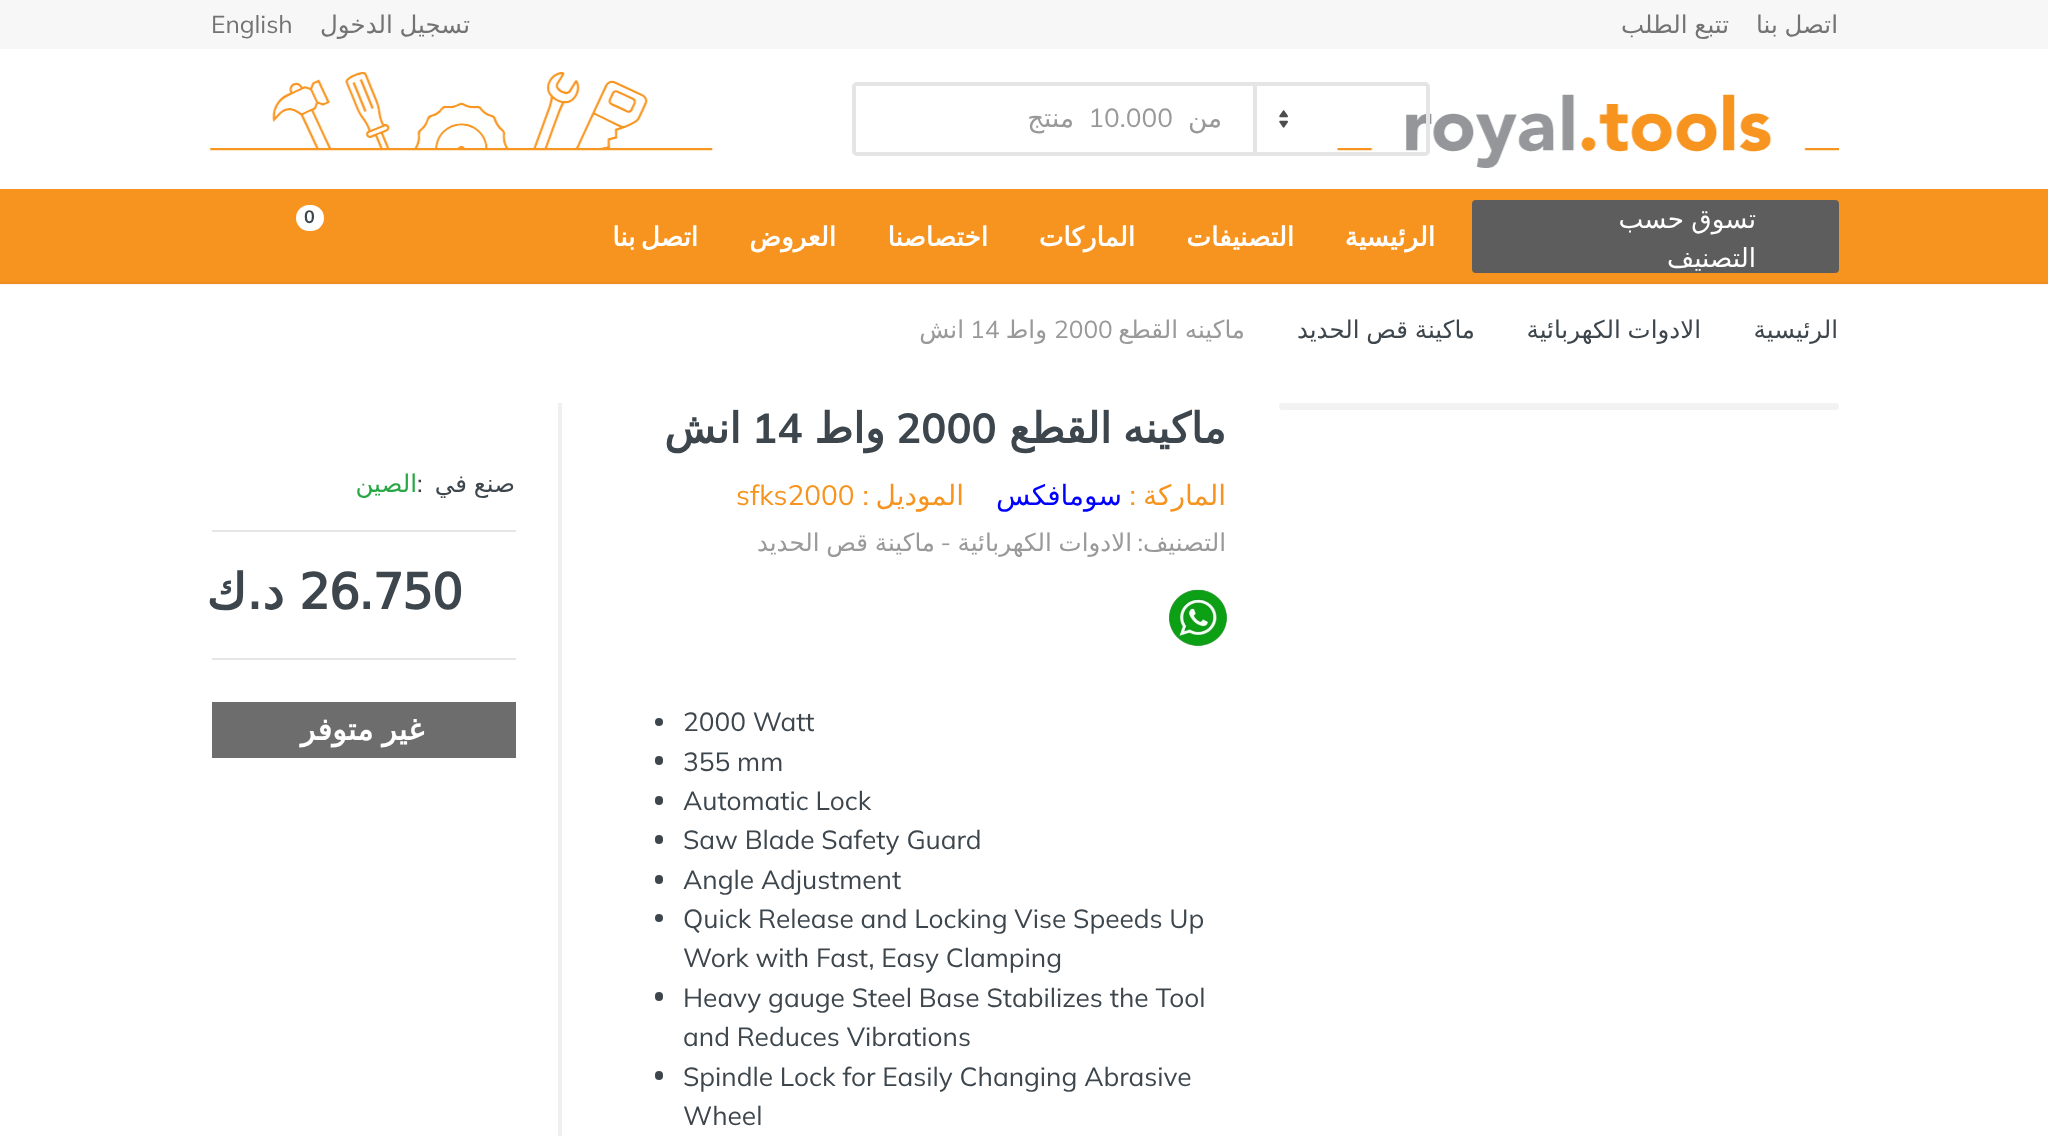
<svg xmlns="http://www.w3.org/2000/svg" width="2048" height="1136">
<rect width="100%" height="100%" fill="#fff"/>
<rect width="2048" height="49" fill="#f7f7f7"/>
<text x="211" y="33" style="font-family:Mulish;font-size:24.5px;fill:#737373">English</text>
<text x="470" y="33" word-spacing="-1" style="font-family:DejaVu Sans;font-size:24.5px;direction:rtl;fill:#737373">تسجيل الدخول</text>
<text x="1729" y="33" word-spacing="-1" style="font-family:DejaVu Sans;font-size:24.5px;direction:rtl;fill:#737373">تتبع الطلب</text>
<text x="1838" y="33" word-spacing="-1" style="font-family:DejaVu Sans;font-size:24.5px;direction:rtl;fill:#737373">اتصل بنا</text>
<image x="210" y="72" width="503" height="79" href="media/1.png"/>
<image x="1279" y="110" width="9" height="18" href="media/2.png"/>
<rect x="1253" y="86" width="4" height="66" fill="#e5e5e5"/>
<image x="1337" y="94" width="502" height="74" href="media/3.png"/>
<rect x="854" y="84" width="574" height="70" rx="3" fill="none" stroke="#e5e5e5" stroke-width="4"/>
<text x="1074" y="127" style="font-family:DejaVu Sans;font-size:26.25px;direction:rtl;fill:#999">منتج</text>
<text x="1173" y="127" style="font-family:Mulish;font-size:26.25px;direction:rtl;fill:#999">10.000</text>
<text x="1222" y="127" style="font-family:DejaVu Sans;font-size:26.25px;direction:rtl;fill:#999">من</text>
<rect y="284" width="2048" height="1" fill="#f5f5f5"/>
<rect y="189" width="2048" height="93" fill="#f7941f"/>
<rect y="282" width="2048" height="2" fill="#ed8e1e"/>
<rect x="296" y="205" width="28" height="26" rx="13" fill="#fff"/>
<text x="304" y="223" style="font-family:Mulish;font-size:18px;font-weight:bold;fill:#3d464d">0</text>
<text x="698" y="246" word-spacing="-3" style="font-family:DejaVu Sans;font-size:26.25px;font-weight:bold;letter-spacing:0.5px;direction:rtl;fill:#fff">اتصل بنا</text>
<text x="836" y="246" style="font-family:DejaVu Sans;font-size:26.25px;font-weight:bold;letter-spacing:0.5px;direction:rtl;fill:#fff">العروض</text>
<text x="988" y="246" style="font-family:DejaVu Sans;font-size:26.25px;font-weight:bold;letter-spacing:0.5px;direction:rtl;fill:#fff">اختصاصنا</text>
<text x="1135" y="246" style="font-family:DejaVu Sans;font-size:26.25px;font-weight:bold;letter-spacing:0.5px;direction:rtl;fill:#fff">الماركات</text>
<text x="1294" y="246" style="font-family:DejaVu Sans;font-size:26.25px;font-weight:bold;letter-spacing:0.5px;direction:rtl;fill:#fff">التصنيفات</text>
<text x="1435" y="246" style="font-family:DejaVu Sans;font-size:26.25px;font-weight:bold;letter-spacing:0.5px;direction:rtl;fill:#fff">الرئيسية</text>
<rect x="1472" y="200" width="367" height="73" rx="4" fill="#5d5d5d"/>
<text x="1756" y="228" word-spacing="-1" style="font-family:DejaVu Sans;font-size:26.25px;direction:rtl;fill:#fff">تسوق حسب</text>
<text x="1756" y="267" style="font-family:DejaVu Sans;font-size:26.25px;direction:rtl;fill:#fff">التصنيف</text>
<text x="964" y="338" style="font-family:DejaVu Sans;font-size:24.5px;direction:rtl;fill:#999">انش</text>
<text x="970" y="338" style="font-family:Mulish;font-size:24.5px;fill:#999">14</text>
<text x="1047" y="338" style="font-family:DejaVu Sans;font-size:24.5px;direction:rtl;fill:#999">واط</text>
<text x="1054" y="338" style="font-family:Mulish;font-size:24.5px;fill:#999">2000</text>
<text x="1245" y="338" word-spacing="-1" style="font-family:DejaVu Sans;font-size:24.5px;direction:rtl;fill:#999">ماكينه القطع</text>
<text x="1475" y="338" word-spacing="-1" style="font-family:DejaVu Sans;font-size:24.5px;direction:rtl;fill:#3d464d">ماكينة قص الحديد</text>
<text x="1701" y="338" word-spacing="-1" style="font-family:DejaVu Sans;font-size:24.5px;direction:rtl;fill:#3d464d">الادوات الكهربائية</text>
<text x="1838" y="338" style="font-family:DejaVu Sans;font-size:24.5px;direction:rtl;fill:#3d464d">الرئيسية</text>
<rect x="1279" y="403" width="560" height="7" rx="3.5" fill="#f2f2f2"/>
<rect x="558" y="403" width="4" height="733" fill="#f0f0f0"/>
<text x="417" y="492" style="font-family:DejaVu Sans;font-size:24.5px;direction:rtl;fill:#28a745">الصين</text>
<text x="417" y="492" style="font-family:Mulish;font-size:24.5px;fill:#3d464d">:</text>
<text x="515" y="492" word-spacing="-1" style="font-family:DejaVu Sans;font-size:24.5px;direction:rtl;fill:#3d464d">صنع في</text>
<rect x="212" y="530" width="304" height="2" fill="#e6e6e6"/>
<text x="284" y="609" style="font-family:DejaVu Sans;font-size:49px;font-weight:bold;letter-spacing:-1.5px;direction:rtl;fill:#3d464d">د.ك</text>
<text x="299" y="609" style="font-family:DejaVu Sans;font-size:49px;font-weight:bold;letter-spacing:-1.5px;fill:#3d464d">26.750</text>
<rect x="212" y="658" width="304" height="2" fill="#e6e6e6"/>
<rect x="212" y="702" width="304" height="56" fill="#6d6d6d"/>
<text x="424" y="740" word-spacing="-1" style="font-family:DejaVu Sans;font-size:30.5px;font-weight:bold;direction:rtl;fill:#fff">غير متوفر</text>
<text x="741" y="443" style="font-family:DejaVu Sans;font-size:42px;font-weight:bold;direction:rtl;fill:#3d464d">انش</text>
<text x="752" y="443" style="font-family:Mulish;font-size:42px;font-weight:bold;fill:#3d464d">14</text>
<text x="885" y="443" style="font-family:DejaVu Sans;font-size:42px;font-weight:bold;direction:rtl;fill:#3d464d">واط</text>
<text x="896" y="443" style="font-family:Mulish;font-size:42px;font-weight:bold;fill:#3d464d">2000</text>
<text x="1226" y="443" word-spacing="-2" style="font-family:DejaVu Sans;font-size:42px;font-weight:bold;direction:rtl;fill:#3d464d">ماكينه القطع</text>
<text x="736" y="505" style="font-family:Mulish;font-size:28px;fill:#f7941f">sfks2000</text>
<text x="869" y="505" style="font-family:Mulish;font-size:28px;direction:rtl;fill:#f7941f">:</text>
<text x="964" y="505" style="font-family:DejaVu Sans;font-size:28px;direction:rtl;fill:#f7941f">الموديل</text>
<text x="1122" y="505" style="font-family:DejaVu Sans;font-size:28px;direction:rtl;fill:#00f">سومافكس</text>
<text x="1136" y="505" style="font-family:Mulish;font-size:28px;direction:rtl;fill:#f7941f">:</text>
<text x="1226" y="505" style="font-family:DejaVu Sans;font-size:28px;direction:rtl;fill:#f7941f">الماركة</text>
<text x="935" y="551" word-spacing="-1" style="font-family:DejaVu Sans;font-size:24.5px;direction:rtl;fill:#999">ماكينة قص الحديد</text>
<text x="951" y="551" style="font-family:Mulish;font-size:24.5px;direction:rtl;fill:#999">-</text>
<text x="1132" y="551" word-spacing="-1" style="font-family:DejaVu Sans;font-size:24.5px;direction:rtl;fill:#999">الادوات الكهربائية</text>
<text x="1143" y="551" style="font-family:Mulish;font-size:24.5px;direction:rtl;fill:#999">:</text>
<text x="1226" y="551" style="font-family:DejaVu Sans;font-size:24.5px;direction:rtl;fill:#999">التصنيف</text>
<image x="1169" y="589" width="58" height="57" href="media/4.png"/>
<circle cx="659" cy="722" r="4" fill="#3d464d"/>
<text x="683" y="731" style="font-family:Mulish;font-size:26.25px;fill:#3d464d">2000 Watt</text>
<rect x="655" y="756" width="8" height="9" rx="4" fill="#3d464d"/>
<text x="683" y="771" style="font-family:Mulish;font-size:26.25px;fill:#3d464d">355 mm</text>
<rect x="655" y="796" width="8" height="9" rx="4" fill="#3d464d"/>
<text x="683" y="810" style="font-family:Mulish;font-size:26.25px;fill:#3d464d">Automatic Lock</text>
<rect x="655" y="835" width="8" height="9" rx="4" fill="#3d464d"/>
<text x="683" y="849" style="font-family:Mulish;font-size:26.25px;fill:#3d464d">Saw Blade Safety Guard</text>
<rect x="655" y="875" width="8" height="9" rx="4" fill="#3d464d"/>
<text x="683" y="889" style="font-family:Mulish;font-size:26.25px;fill:#3d464d">Angle Adjustment</text>
<circle cx="659" cy="918" r="4" fill="#3d464d"/>
<text x="683" y="928" style="font-family:Mulish;font-size:26.25px;fill:#3d464d">Quick Release and Locking Vise Speeds Up</text>
<text x="683" y="967" style="font-family:Mulish;font-size:26.25px;fill:#3d464d">Work with Fast, Easy Clamping</text>
<rect x="655" y="992" width="8" height="9" rx="4" fill="#3d464d"/>
<text x="683" y="1007" style="font-family:Mulish;font-size:26.25px;fill:#3d464d">Heavy gauge Steel Base Stabilizes the Tool</text>
<text x="683" y="1046" style="font-family:Mulish;font-size:26.25px;fill:#3d464d">and Reduces Vibrations</text>
<rect x="655" y="1071" width="8" height="9" rx="4" fill="#3d464d"/>
<text x="683" y="1086" style="font-family:Mulish;font-size:26.25px;fill:#3d464d">Spindle Lock for Easily Changing Abrasive</text>
<text x="683" y="1125" style="font-family:Mulish;font-size:26.25px;fill:#3d464d">Wheel</text>
</svg>
